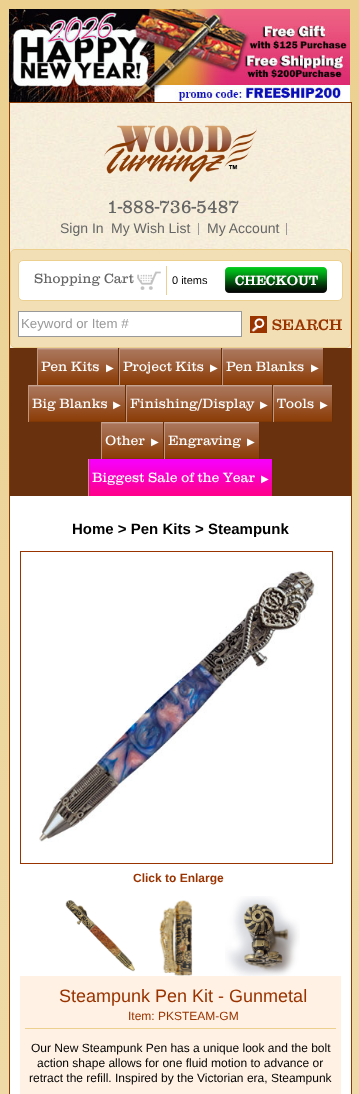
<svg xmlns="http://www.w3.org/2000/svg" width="359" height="1094">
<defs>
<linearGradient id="g1" gradientUnits="userSpaceOnUse" x1="0" y1="0" x2="0" y2="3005"><stop offset="0" stop-color="#ebd090"/><stop offset="1" stop-color="#f6eacd"/></linearGradient>
</defs>
<rect width="100%" height="100%" fill="#fff"/>
<rect width="359" height="1094" fill="url(#g1)"/>
<image x="9" y="9" width="341" height="93" href="media/1.png"/>
<image x="10" y="103" width="341" height="245" href="media/2.png"/>
<rect x="9" y="102" width="343" height="1" fill="#8b3b05"/>
<rect x="351" y="102" width="1" height="992" fill="#8b3b05"/>
<rect x="9" y="102" width="1" height="992" fill="#8b3b05"/>
<image x="104" y="125" width="153" height="57" href="media/3.png"/>
<text x="107" y="213" style="font-family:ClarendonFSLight;font-size:19px;fill:#666">1-888-736-5487</text>
<text x="60" y="233" style="font-family:Liberation Sans;font-size:14px;fill:#666">Sign In</text>
<text x="111" y="233" style="font-family:Liberation Sans;font-size:14px;fill:#666">My Wish List</text>
<rect x="198" y="223" width="1" height="12" fill="#999"/>
<text x="207" y="233" style="font-family:Liberation Sans;font-size:14px;fill:#666">My Account</text>
<rect x="286" y="223" width="1" height="12" fill="#999"/>
<rect x="10.5" y="249.5" width="340" height="98" rx="4.5" fill="#f2dfb5" stroke="#ebd090"/>
<rect x="18.5" y="260.5" width="324" height="40" rx="4.5" fill="#fff" stroke="#ebd090"/>
<text x="34" y="283" style="font-family:ClarendonFSLight;font-size:14px;fill:#666">Shopping Cart</text>
<image x="137" y="271" width="24" height="19" href="media/4.png"/>
<rect x="166" y="266" width="1" height="29" fill="#ebd090"/>
<text x="172" y="284" style="font-family:Liberation Sans;font-size:11px;fill:#000">0 items</text>
<image x="225" y="267" width="102" height="26" href="media/5.png"/>
<rect x="18.5" y="311.5" width="223" height="25" fill="#fff" stroke="#999"/>
<text x="21" y="328" style="font-family:Liberation Sans;font-size:13.25px;fill:#999">Keyword or Item #</text>
<image x="250" y="316" width="92" height="17" href="media/6.png"/>
<rect x="10" y="348" width="341" height="148" fill="#69310d"/>
<image x="38" y="348" width="80" height="37" href="media/7.png"/>
<rect x="118" y="348" width="1" height="37" fill="#682e08"/>
<rect x="37" y="348" width="1" height="37" fill="#c0977e"/>
<text x="41" y="371" style="font-family:ClarendonFSLight;font-size:14px;fill:#fff">Pen Kits</text>
<text x="106" y="371" style="font-family:DejaVu Sans;font-size:10px;fill:#fff">▶</text>
<image x="120" y="348" width="101" height="37" href="media/8.png"/>
<rect x="221" y="348" width="1" height="37" fill="#682e08"/>
<rect x="119" y="348" width="1" height="37" fill="#c0977e"/>
<text x="123" y="371" style="font-family:ClarendonFSLight;font-size:14px;fill:#fff">Project Kits</text>
<text x="210" y="371" style="font-family:DejaVu Sans;font-size:10px;fill:#fff">▶</text>
<image x="223" y="348" width="100" height="37" href="media/9.png"/>
<rect x="323" y="348" width="1" height="37" fill="#682e08"/>
<rect x="222" y="348" width="1" height="37" fill="#c0977e"/>
<text x="226" y="371" style="font-family:ClarendonFSLight;font-size:14px;fill:#fff">Pen Blanks</text>
<text x="311" y="371" style="font-family:DejaVu Sans;font-size:10px;fill:#fff">▶</text>
<image x="29" y="385" width="96" height="37" href="media/10.png"/>
<rect x="125" y="385" width="1" height="37" fill="#682e08"/>
<rect x="28" y="385" width="1" height="37" fill="#c0977e"/>
<text x="32" y="408" style="font-family:ClarendonFSLight;font-size:14px;fill:#fff">Big Blanks</text>
<text x="113" y="408" style="font-family:DejaVu Sans;font-size:10px;fill:#fff">▶</text>
<image x="127" y="385" width="145" height="37" href="media/11.png"/>
<rect x="272" y="385" width="1" height="37" fill="#682e08"/>
<rect x="126" y="385" width="1" height="37" fill="#c0977e"/>
<text x="130" y="408" style="font-family:ClarendonFSLight;font-size:14px;fill:#fff">Finishing/Display</text>
<text x="260" y="408" style="font-family:DejaVu Sans;font-size:10px;fill:#fff">▶</text>
<image x="274" y="385" width="58" height="37" href="media/12.png"/>
<rect x="332" y="385" width="1" height="37" fill="#682e08"/>
<rect x="273" y="385" width="1" height="37" fill="#c0977e"/>
<text x="277" y="408" style="font-family:ClarendonFSLight;font-size:14px;fill:#fff">Tools</text>
<text x="320" y="408" style="font-family:DejaVu Sans;font-size:10px;fill:#fff">▶</text>
<image x="102" y="422" width="61" height="37" href="media/13.png"/>
<rect x="163" y="422" width="1" height="37" fill="#682e08"/>
<rect x="101" y="422" width="1" height="37" fill="#c0977e"/>
<text x="105" y="445" style="font-family:ClarendonFSLight;font-size:14px;fill:#fff">Other</text>
<text x="151" y="445" style="font-family:DejaVu Sans;font-size:10px;fill:#fff">▶</text>
<image x="165" y="422" width="94" height="37" href="media/14.png"/>
<rect x="259" y="422" width="1" height="37" fill="#682e08"/>
<rect x="164" y="422" width="1" height="37" fill="#c0977e"/>
<text x="168" y="445" style="font-family:ClarendonFSLight;font-size:14px;fill:#fff">Engraving</text>
<text x="247" y="445" style="font-family:DejaVu Sans;font-size:10px;fill:#fff">▶</text>
<image x="89" y="459" width="183" height="37" href="media/15.png"/>
<rect x="272" y="459" width="1" height="37" fill="#682e08"/>
<rect x="88" y="459" width="1" height="37" fill="#c0977e"/>
<text x="92" y="482" style="font-family:ClarendonFSLight;font-size:14px;fill:#fff">Biggest Sale of the Year</text>
<text x="261" y="482" style="font-family:DejaVu Sans;font-size:10px;fill:#fff">▶</text>
<rect x="10" y="496" width="341" height="598" fill="#fff"/>
<text x="72" y="534" style="font-family:Liberation Sans;font-size:15px;font-weight:bold;fill:#000">Home &gt; Pen Kits &gt; Steampunk</text>
<rect x="20.5" y="551.5" width="312" height="312" fill="none" stroke="#930"/>
<image x="39" y="571" width="279" height="271" href="media/16.png"/>
<text x="133" y="882" style="font-family:Liberation Sans;font-size:12px;font-weight:bold;fill:#930">Click to Enlarge</text>
<image x="65" y="900" width="70" height="72" href="media/17.png"/>
<image x="159" y="900" width="34" height="76" href="media/18.png"/>
<image x="225" y="896" width="75" height="80" href="media/19.png"/>
<rect x="20" y="976" width="321" height="118" fill="#fff1e3"/>
<rect x="25" y="1028" width="311" height="1" fill="#ebd090"/>
<text x="59" y="1002" style="font-family:Liberation Sans;font-size:18px;fill:#930">Steampunk Pen Kit - Gunmetal</text>
<text x="128" y="1020" style="font-family:Liberation Sans;font-size:12px;fill:#930">Item: PKSTEAM-GM</text>
<text x="31" y="1052" style="font-family:Liberation Sans;font-size:12px;fill:#000">Our New Steampunk Pen has a unique look and the bolt</text>
<text x="37" y="1067" style="font-family:Liberation Sans;font-size:12px;fill:#000">action shape allows for one fluid motion to advance or</text>
<text x="29" y="1082" style="font-family:Liberation Sans;font-size:12px;fill:#000">retract the refill. Inspired by the Victorian era, Steampunk</text>
</svg>
